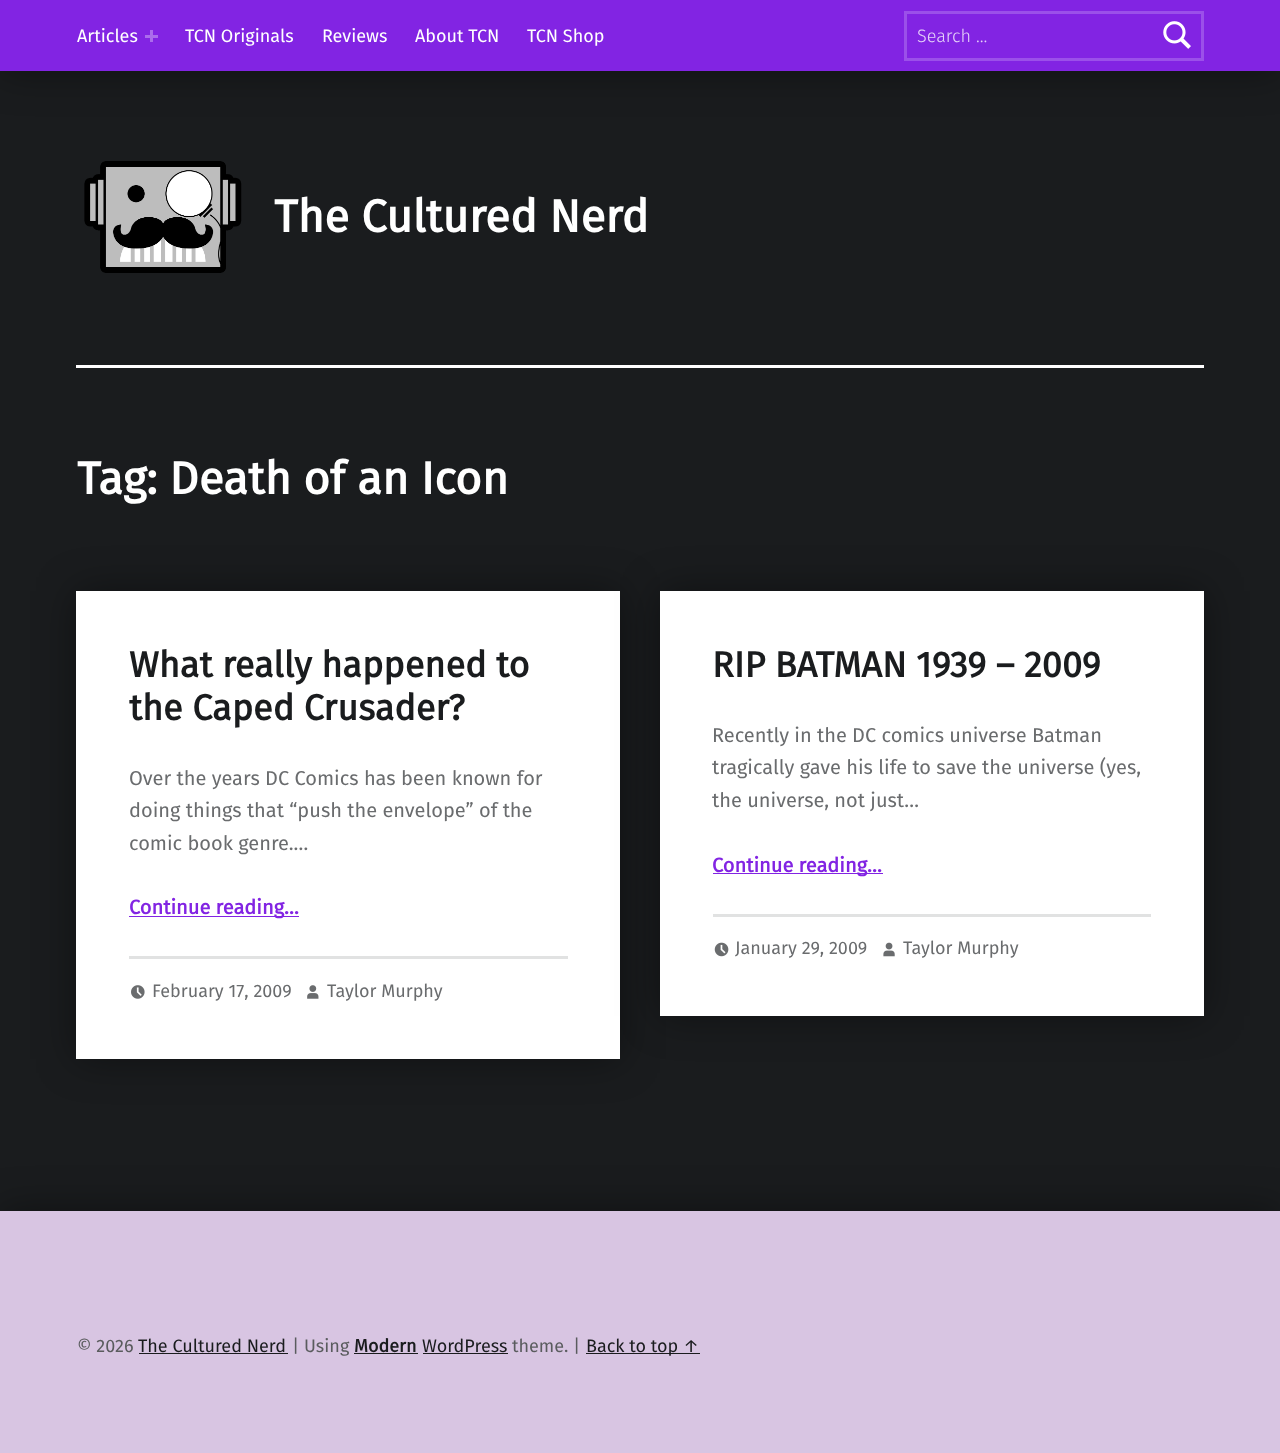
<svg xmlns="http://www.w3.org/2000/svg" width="1280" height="1453">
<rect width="100%" height="100%" fill="#1a1c1e"/>
<rect width="1280" height="71" fill="#00000066" filter="blur(20px)"/>
<rect width="1280" height="71" fill="#8224e3"/>
<text x="77" y="42" style="font-family:Fira Sans;font-size:18px;fill:#fff">Articles</text>
<rect x="145" y="35" width="13" height="3" fill="#ab6cec"/>
<rect x="150" y="30" width="3" height="12" fill="#ab6cec"/>
<text x="185" y="42" style="font-family:Fira Sans;font-size:18px;fill:#fff">TCN Originals</text>
<text x="322" y="42" style="font-family:Fira Sans;font-size:18px;fill:#fff">Reviews</text>
<text x="415" y="42" style="font-family:Fira Sans;font-size:18px;fill:#fff">About TCN</text>
<text x="527" y="42" style="font-family:Fira Sans;font-size:18px;fill:#fff">TCN Shop</text>
<rect x="905.5" y="12.5" width="297" height="47" fill="none" stroke="#9b50e9" stroke-width="3"/>
<text x="917" y="42" style="font-family:Fira Sans;font-size:18px;font-weight:300;fill:#e6d3f9">Search …</text>
<image x="1163" y="21" width="28" height="28" href="media/1.png"/>
<image x="84" y="161" width="158" height="112" href="media/2.png"/>
<text x="274" y="232" style="font-family:Fira Sans;font-size:45.6px;font-weight:bold;fill:#fff">The Cultured Nerd</text>
<rect x="76" y="365" width="1128" height="3" fill="#fff"/>
<text x="77" y="494" style="font-family:Fira Sans;font-size:45.6px;font-weight:bold;fill:#fff">Tag: Death of an Icon</text>
<rect x="76" y="591" width="544" height="468" fill="#00000066" filter="blur(20px)"/>
<rect x="76" y="591" width="544" height="468" fill="#fff"/>
<text x="129" y="677" style="font-family:Fira Sans;font-size:36px;font-weight:bold;fill:#1a1c1e">What really happened to</text>
<text x="129" y="720" style="font-family:Fira Sans;font-size:36px;font-weight:bold;fill:#1a1c1e">the Caped Crusader?</text>
<text x="129" y="785" style="font-family:Fira Sans;font-size:20px;fill:#6a6c6e">Over the years DC Comics has been known for</text>
<text x="129" y="817" style="font-family:Fira Sans;font-size:20px;fill:#6a6c6e">doing things that “push the envelope” of the</text>
<text x="129" y="850" style="font-family:Fira Sans;font-size:20px;fill:#6a6c6e">comic book genre.…</text>
<rect x="129" y="916" width="155" height="1" fill="#8224e3"/>
<text x="129" y="914" style="font-family:Fira Sans;font-size:20px;font-weight:bold;fill:#8224e3">Continue reading…</text>
<rect x="284" y="916" width="15" height="1" fill="#8224e3"/>
<rect x="129" y="956" width="439" height="3" fill="#e1e2e2"/>
<image x="131" y="985" width="14" height="14" href="media/3.png"/>
<text x="152" y="997" style="font-family:Fira Sans;font-size:18px;fill:#6a6c6e">February 17, 2009</text>
<image x="307" y="985" width="12" height="14" href="media/4.png"/>
<text x="327" y="997" style="font-family:Fira Sans;font-size:18px;fill:#6a6c6e">Taylor Murphy</text>
<rect x="660" y="591" width="544" height="425" fill="#00000066" filter="blur(20px)"/>
<rect x="660" y="591" width="544" height="425" fill="#fff"/>
<text x="712" y="677" style="font-family:Fira Sans;font-size:36px;font-weight:bold;fill:#1a1c1e">RIP BATMAN 1939 – 2009</text>
<text x="712" y="742" style="font-family:Fira Sans;font-size:20px;fill:#6a6c6e">Recently in the DC comics universe Batman</text>
<text x="712" y="774" style="font-family:Fira Sans;font-size:20px;fill:#6a6c6e">tragically gave his life to save the universe (yes,</text>
<text x="712" y="807" style="font-family:Fira Sans;font-size:20px;fill:#6a6c6e">the universe, not just…</text>
<rect x="713" y="873" width="170" height="1" fill="#8224e3"/>
<text x="712" y="872" style="font-family:Fira Sans;font-size:20px;font-weight:bold;fill:#8224e3">Continue reading…</text>
<rect x="713" y="914" width="438" height="3" fill="#e1e2e2"/>
<image x="714" y="942" width="15" height="15" href="media/5.png"/>
<text x="735" y="954" style="font-family:Fira Sans;font-size:18px;fill:#6a6c6e">January 29, 2009</text>
<image x="883" y="942" width="12" height="15" href="media/6.png"/>
<text x="903" y="954" style="font-family:Fira Sans;font-size:18px;fill:#6a6c6e">Taylor Murphy</text>
<rect y="1211" width="1280" height="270" fill="#00000066" filter="blur(20px)"/>
<rect y="1211" width="1280" height="242" fill="#d8c5e2"/>
<text x="77" y="1352" style="font-family:Fira Sans;font-size:18px;fill:#5a5c5e">© 2026</text>
<text x="138" y="1352" style="font-family:Fira Sans;font-size:18px;fill:#1a1c1e">The Cultured Nerd</text>
<rect x="139" y="1353" width="149" height="1" fill="#1a1c1e"/>
<text x="292" y="1352" style="font-family:Fira Sans;font-size:18px;fill:#5a5c5e">| Using</text>
<text x="354" y="1352" style="font-family:Fira Sans;font-size:18px;font-weight:bold;fill:#1a1c1e">Modern</text>
<rect x="354" y="1353" width="64" height="1" fill="#1a1c1e"/>
<text x="422" y="1352" style="font-family:Fira Sans;font-size:18px;fill:#1a1c1e">WordPress</text>
<rect x="423" y="1353" width="85" height="1" fill="#1a1c1e"/>
<text x="512" y="1352" style="font-family:Fira Sans;font-size:18px;fill:#5a5c5e">theme. |</text>
<rect x="586" y="1353" width="114" height="1" fill="#1a1c1e"/>
<text x="586" y="1352" style="font-family:Fira Sans;font-size:18px;fill:#1a1c1e">Back to top ↑</text>
</svg>
